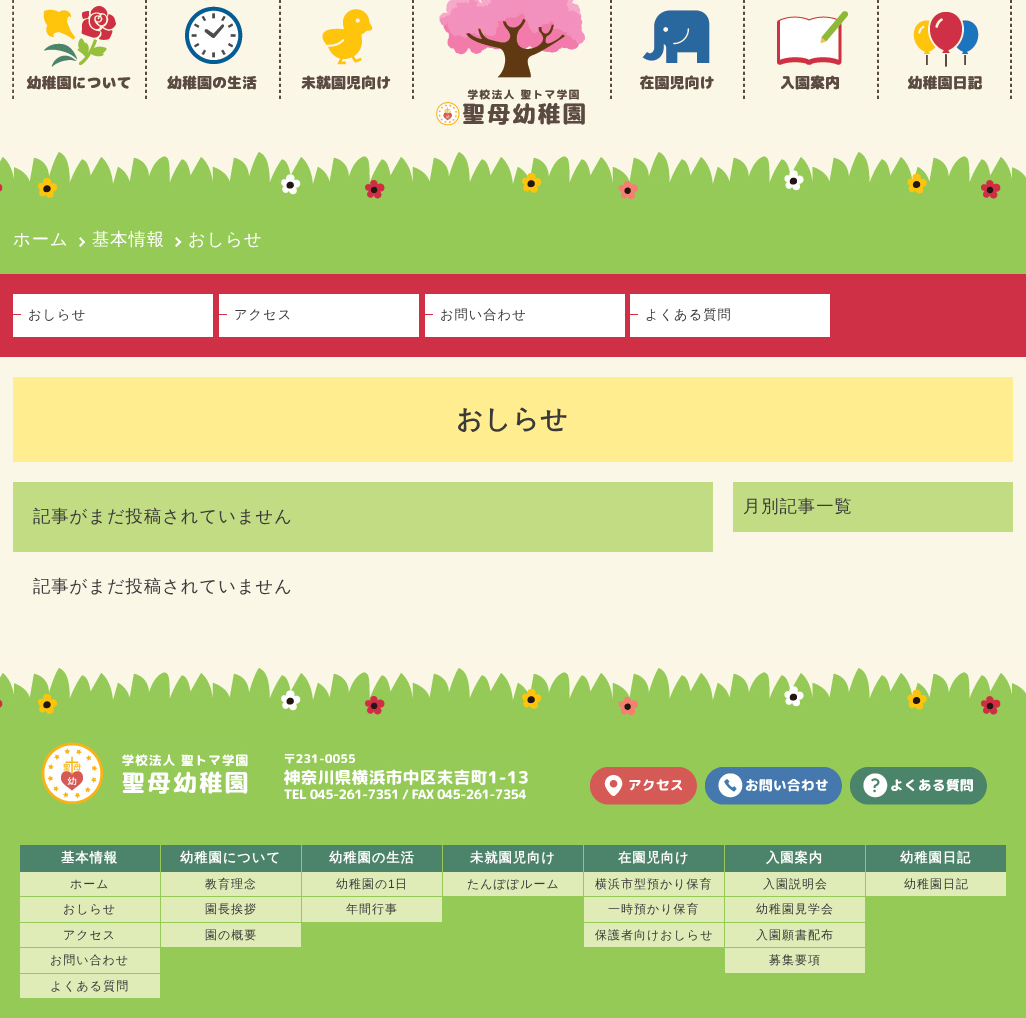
<svg xmlns="http://www.w3.org/2000/svg" width="1026" height="1018">
<rect width="100%" height="100%" fill="#fbf7e6"/>
<image x="12" y="0" width="134" height="99" href="media/1.png"/>
<image x="146" y="0" width="134" height="99" href="media/2.png"/>
<image x="280" y="0" width="134" height="99" href="media/3.png"/>
<image x="431" y="0" width="159" height="127" href="media/4.png"/>
<image x="610" y="0" width="134" height="99" href="media/5.png"/>
<image x="744" y="0" width="134" height="99" href="media/6.png"/>
<image x="878" y="0" width="134" height="99" href="media/7.png"/>
<rect y="201" width="1026" height="73" fill="#95ca57"/>
<image x="0" y="145" width="1026" height="56" href="media/8.png"/>
<text x="13" y="245" style="font-family:WenQuanYi Zen Hei;font-size:17.3px;font-weight:500;letter-spacing:1px;fill:#fff">ホーム</text>
<path d="M80.5 237l4.5 5l-1 1.5l-5-5z" fill="#fff"/>
<path d="M84 240.5l1 1.5l-4.5 5l-1.5-1.5z" fill="#fff"/>
<text x="92" y="245" style="font-family:WenQuanYi Zen Hei;font-size:17.3px;font-weight:500;letter-spacing:1px;fill:#fff">基本情報</text>
<path d="M176.5 237l5 5l-1.5 1.5l-5-5z" fill="#fff"/>
<path d="M180 240.5l1.5 1.5l-5 5l-1.5-1.5z" fill="#fff"/>
<text x="188" y="245" style="font-family:WenQuanYi Zen Hei;font-size:17.3px;font-weight:500;letter-spacing:1px;fill:#fff">おしらせ</text>
<rect y="274" width="1026" height="83" fill="#cf3046"/>
<rect x="13" y="294" width="200" height="43" fill="#fff"/>
<rect x="13" y="314" width="8" height="1" fill="#cf3046"/>
<text x="28" y="319" style="font-family:WenQuanYi Zen Hei;font-size:13.25px;font-weight:500;letter-spacing:1px;fill:#3a3a3a">おしらせ</text>
<rect x="219" y="294" width="200" height="43" fill="#fff"/>
<rect x="219" y="314" width="8" height="1" fill="#cf3046"/>
<text x="234" y="319" style="font-family:WenQuanYi Zen Hei;font-size:13.25px;font-weight:500;letter-spacing:1px;fill:#3a3a3a">アクセス</text>
<rect x="425" y="294" width="200" height="43" fill="#fff"/>
<rect x="425" y="314" width="8" height="1" fill="#cf3046"/>
<text x="440" y="319" style="font-family:WenQuanYi Zen Hei;font-size:13.25px;font-weight:500;letter-spacing:1px;fill:#3a3a3a">お問い合わせ</text>
<rect x="630" y="294" width="200" height="43" fill="#fff"/>
<rect x="630" y="314" width="8" height="1" fill="#cf3046"/>
<text x="645" y="319" style="font-family:WenQuanYi Zen Hei;font-size:13.25px;font-weight:500;letter-spacing:1px;fill:#3a3a3a">よくある質問</text>
<rect x="13" y="377" width="1000" height="85" fill="#ffed8f"/>
<text x="456" y="428" style="font-family:WenQuanYi Zen Hei;font-size:26.5px;font-weight:bold;letter-spacing:1px;fill:#3a3a3a">おしらせ</text>
<rect x="13" y="482" width="700" height="70" fill="#c2dc83"/>
<text x="33" y="522" style="font-family:WenQuanYi Zen Hei;font-size:17.3px;font-weight:500;letter-spacing:1px;fill:#3a3a3a">記事がまだ投稿されていません</text>
<text x="33" y="592" style="font-family:WenQuanYi Zen Hei;font-size:17.3px;font-weight:500;letter-spacing:1px;fill:#3a3a3a">記事がまだ投稿されていません</text>
<rect x="733" y="482" width="280" height="50" fill="#c2dc83"/>
<text x="743" y="512" style="font-family:WenQuanYi Zen Hei;font-size:17.3px;font-weight:500;letter-spacing:1px;fill:#3a3a3a">月別記事一覧</text>
<rect y="717" width="1026" height="301" fill="#95ca57"/>
<image x="0" y="661" width="1026" height="56" href="media/8.png"/>
<image x="41" y="742" width="207" height="63" href="media/9.png"/>
<image x="283" y="753" width="246" height="52" href="media/10.png"/>
<image x="590" y="766" width="107" height="39" href="media/11.png"/>
<image x="705" y="766" width="137" height="39" href="media/12.png"/>
<image x="850" y="766" width="137" height="39" href="media/13.png"/>
<rect x="20" y="845" width="140" height="27" fill="#4b846a"/>
<text x="61" y="862" style="font-family:WenQuanYi Zen Hei;font-size:13.25px;font-weight:bold;letter-spacing:1px;fill:#fff">基本情報</text>
<rect x="20" y="872" width="140" height="24" fill="#e0ecb7"/>
<text x="70" y="888" style="font-family:WenQuanYi Zen Hei;font-size:12px;font-weight:500;letter-spacing:1px;fill:#3a3a3a">ホーム</text>
<rect x="20" y="897" width="140" height="25" fill="#e0ecb7"/>
<text x="63" y="913" style="font-family:WenQuanYi Zen Hei;font-size:12px;font-weight:500;letter-spacing:1px;fill:#3a3a3a">おしらせ</text>
<rect x="20" y="923" width="140" height="24" fill="#e0ecb7"/>
<text x="63" y="939" style="font-family:WenQuanYi Zen Hei;font-size:12px;font-weight:500;letter-spacing:1px;fill:#3a3a3a">アクセス</text>
<rect x="20" y="948" width="140" height="25" fill="#e0ecb7"/>
<text x="50" y="964" style="font-family:WenQuanYi Zen Hei;font-size:12px;font-weight:500;letter-spacing:1px;fill:#3a3a3a">お問い合わせ</text>
<rect x="20" y="974" width="140" height="24" fill="#e0ecb7"/>
<text x="50" y="990" style="font-family:WenQuanYi Zen Hei;font-size:12px;font-weight:500;letter-spacing:1px;fill:#3a3a3a">よくある質問</text>
<rect x="161" y="845" width="140" height="27" fill="#4b846a"/>
<text x="180" y="862" style="font-family:WenQuanYi Zen Hei;font-size:13.25px;font-weight:bold;letter-spacing:1px;fill:#fff">幼稚園について</text>
<rect x="161" y="872" width="140" height="24" fill="#e0ecb7"/>
<text x="205" y="888" style="font-family:WenQuanYi Zen Hei;font-size:12px;font-weight:500;letter-spacing:1px;fill:#3a3a3a">教育理念</text>
<rect x="161" y="897" width="140" height="25" fill="#e0ecb7"/>
<text x="205" y="913" style="font-family:WenQuanYi Zen Hei;font-size:12px;font-weight:500;letter-spacing:1px;fill:#3a3a3a">園長挨拶</text>
<rect x="161" y="923" width="140" height="24" fill="#e0ecb7"/>
<text x="205" y="939" style="font-family:WenQuanYi Zen Hei;font-size:12px;font-weight:500;letter-spacing:1px;fill:#3a3a3a">園の概要</text>
<rect x="302" y="845" width="140" height="27" fill="#4b846a"/>
<text x="329" y="862" style="font-family:WenQuanYi Zen Hei;font-size:13.25px;font-weight:bold;letter-spacing:1px;fill:#fff">幼稚園の生活</text>
<rect x="302" y="872" width="140" height="24" fill="#e0ecb7"/>
<text x="336" y="888" style="font-family:WenQuanYi Zen Hei;font-size:12px;font-weight:500;letter-spacing:1px;fill:#3a3a3a">幼稚園の</text>
<text x="388" y="888" style="font-family:Liberation Sans;font-size:12px;letter-spacing:1px;fill:#3a3a3a">1</text>
<text x="395" y="888" style="font-family:WenQuanYi Zen Hei;font-size:12px;font-weight:500;letter-spacing:1px;fill:#3a3a3a">日</text>
<rect x="302" y="897" width="140" height="25" fill="#e0ecb7"/>
<text x="346" y="913" style="font-family:WenQuanYi Zen Hei;font-size:12px;font-weight:500;letter-spacing:1px;fill:#3a3a3a">年間行事</text>
<rect x="443" y="845" width="140" height="27" fill="#4b846a"/>
<text x="470" y="862" style="font-family:WenQuanYi Zen Hei;font-size:13.25px;font-weight:bold;letter-spacing:1px;fill:#fff">未就園児向け</text>
<rect x="443" y="872" width="140" height="24" fill="#e0ecb7"/>
<text x="467" y="888" style="font-family:WenQuanYi Zen Hei;font-size:12px;font-weight:500;letter-spacing:1px;fill:#3a3a3a">たんぽぽルーム</text>
<rect x="584" y="845" width="140" height="27" fill="#4b846a"/>
<text x="618" y="862" style="font-family:WenQuanYi Zen Hei;font-size:13.25px;font-weight:bold;letter-spacing:1px;fill:#fff">在園児向け</text>
<rect x="584" y="872" width="140" height="24" fill="#e0ecb7"/>
<text x="595" y="888" style="font-family:WenQuanYi Zen Hei;font-size:12px;font-weight:500;letter-spacing:1px;fill:#3a3a3a">横浜市型預かり保育</text>
<rect x="584" y="897" width="140" height="25" fill="#e0ecb7"/>
<text x="608" y="913" style="font-family:WenQuanYi Zen Hei;font-size:12px;font-weight:500;letter-spacing:1px;fill:#3a3a3a">一時預かり保育</text>
<rect x="584" y="923" width="140" height="24" fill="#e0ecb7"/>
<text x="595" y="939" style="font-family:WenQuanYi Zen Hei;font-size:12px;font-weight:500;letter-spacing:1px;fill:#3a3a3a">保護者向けおしらせ</text>
<rect x="725" y="845" width="140" height="27" fill="#4b846a"/>
<text x="766" y="862" style="font-family:WenQuanYi Zen Hei;font-size:13.25px;font-weight:bold;letter-spacing:1px;fill:#fff">入園案内</text>
<rect x="725" y="872" width="140" height="24" fill="#e0ecb7"/>
<text x="763" y="888" style="font-family:WenQuanYi Zen Hei;font-size:12px;font-weight:500;letter-spacing:1px;fill:#3a3a3a">入園説明会</text>
<rect x="725" y="897" width="140" height="25" fill="#e0ecb7"/>
<text x="756" y="913" style="font-family:WenQuanYi Zen Hei;font-size:12px;font-weight:500;letter-spacing:1px;fill:#3a3a3a">幼稚園見学会</text>
<rect x="725" y="923" width="140" height="24" fill="#e0ecb7"/>
<text x="756" y="939" style="font-family:WenQuanYi Zen Hei;font-size:12px;font-weight:500;letter-spacing:1px;fill:#3a3a3a">入園願書配布</text>
<rect x="725" y="948" width="140" height="25" fill="#e0ecb7"/>
<text x="769" y="964" style="font-family:WenQuanYi Zen Hei;font-size:12px;font-weight:500;letter-spacing:1px;fill:#3a3a3a">募集要項</text>
<rect x="866" y="845" width="140" height="27" fill="#4b846a"/>
<text x="900" y="862" style="font-family:WenQuanYi Zen Hei;font-size:13.25px;font-weight:bold;letter-spacing:1px;fill:#fff">幼稚園日記</text>
<rect x="866" y="872" width="140" height="24" fill="#e0ecb7"/>
<text x="904" y="888" style="font-family:WenQuanYi Zen Hei;font-size:12px;font-weight:500;letter-spacing:1px;fill:#3a3a3a">幼稚園日記</text>
</svg>
